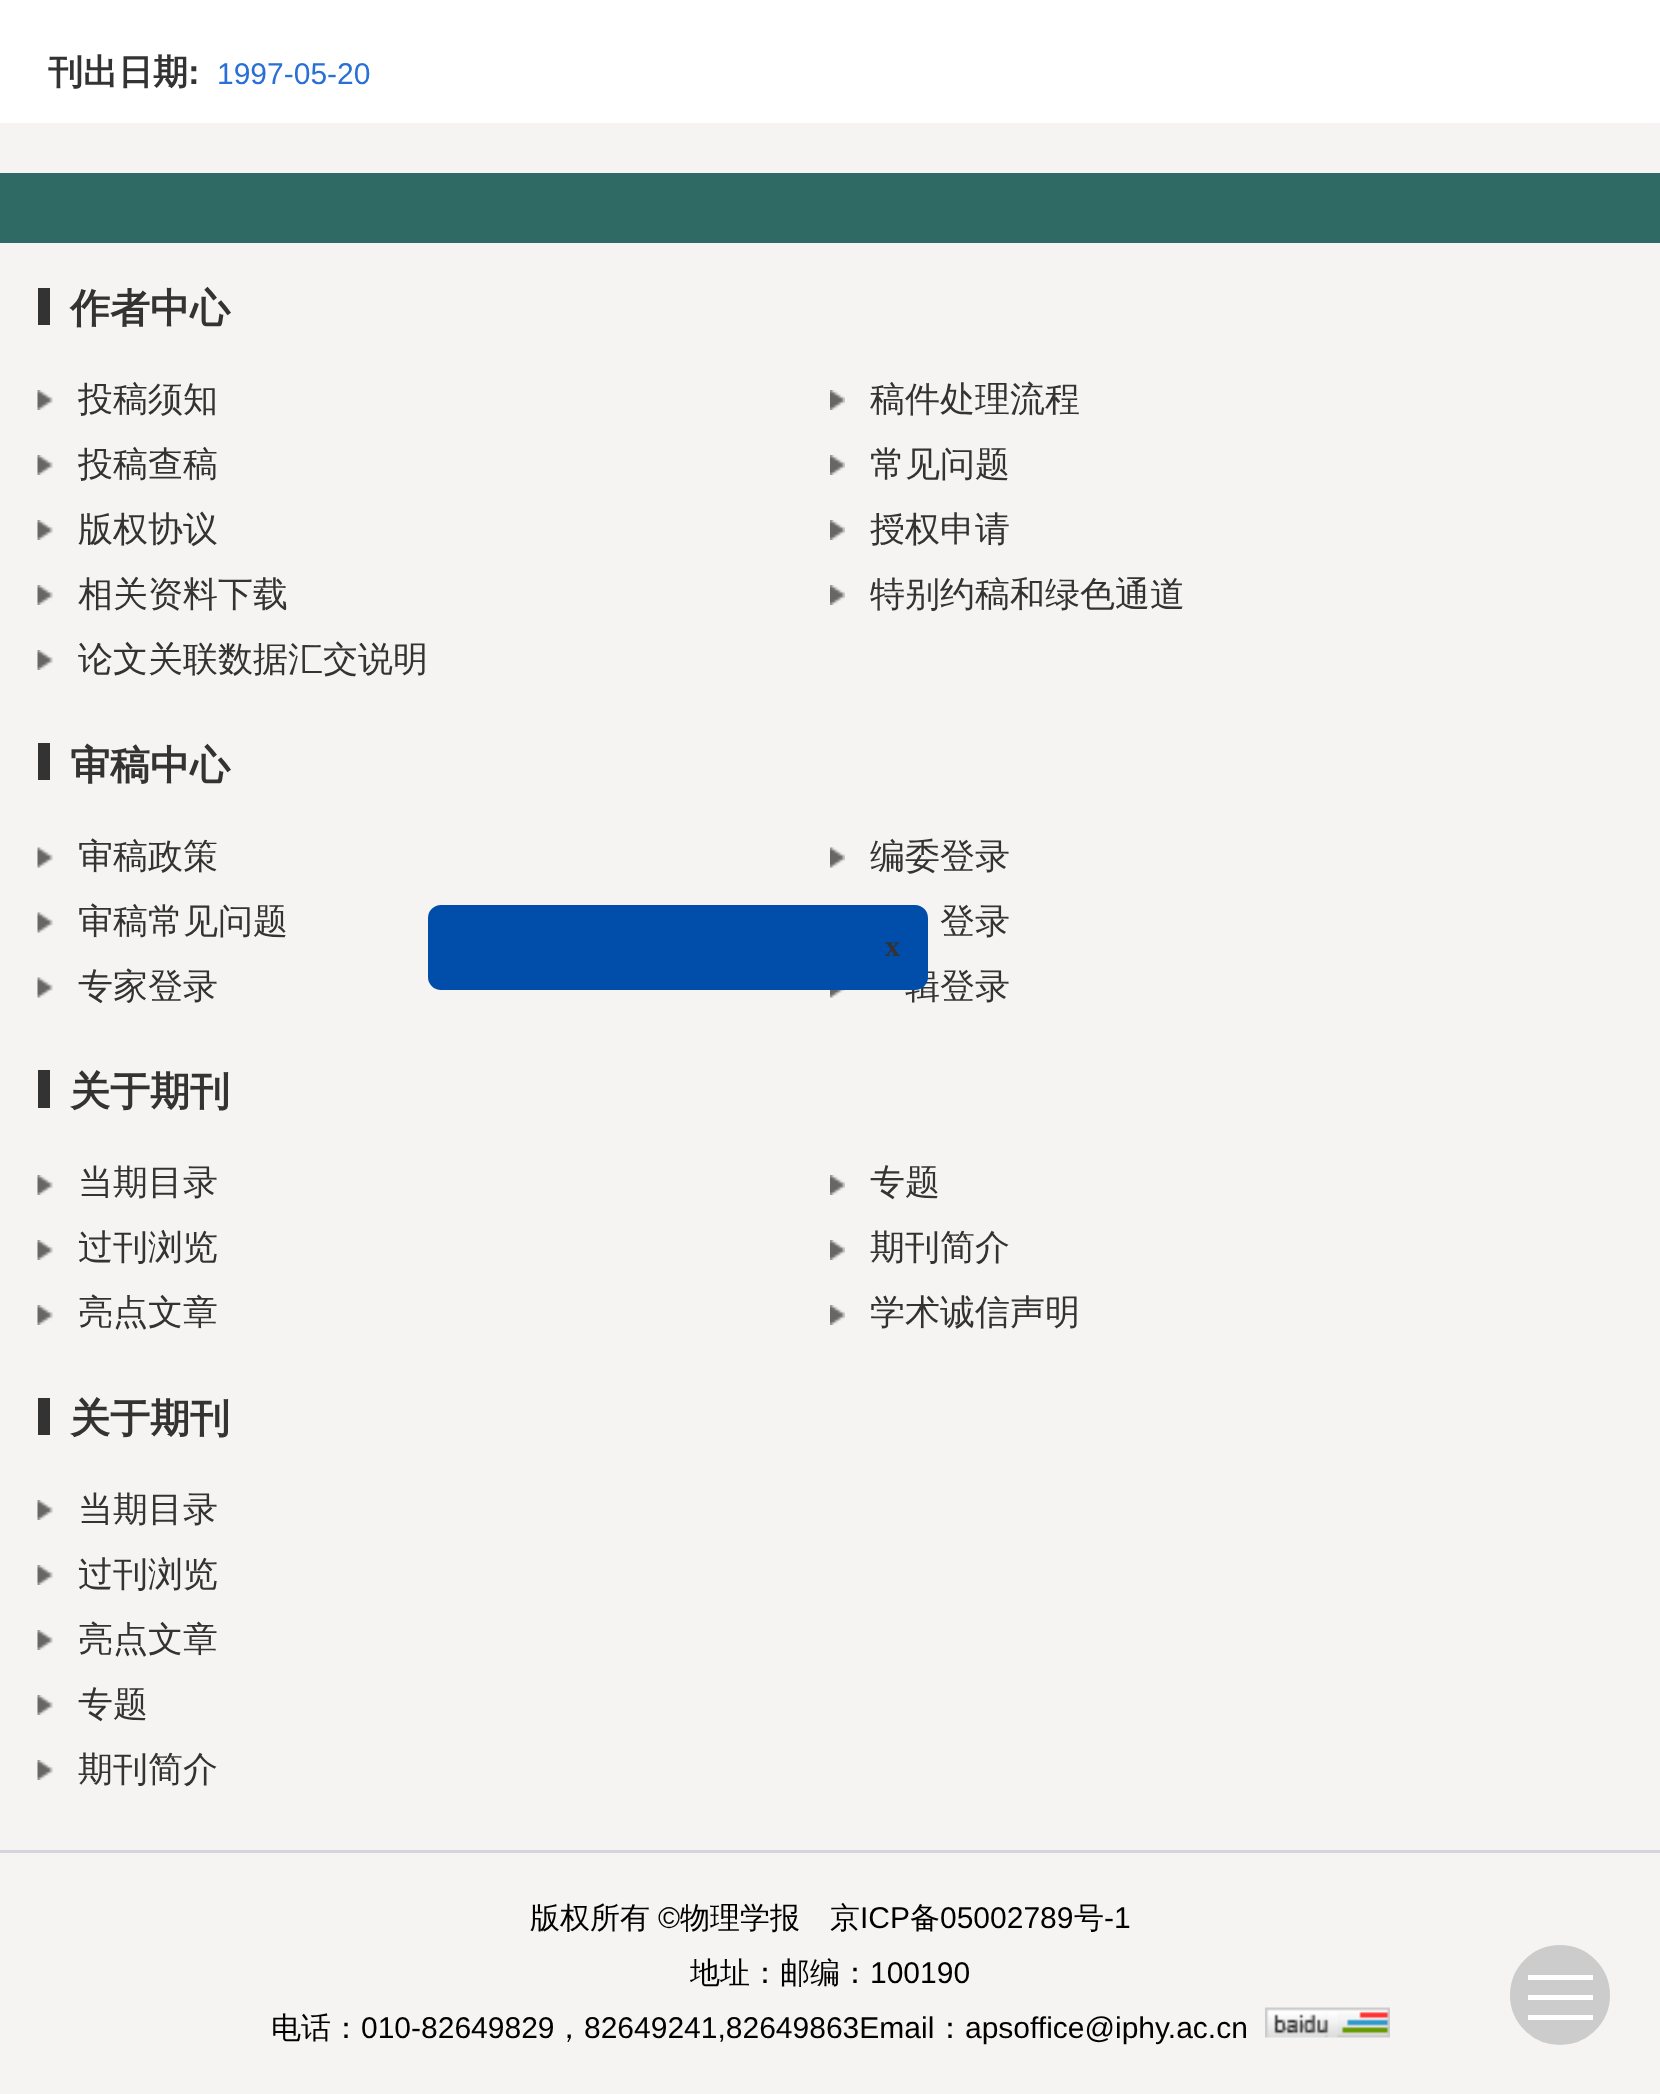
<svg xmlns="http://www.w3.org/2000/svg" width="1660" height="2094">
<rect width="100%" height="100%" fill="#f6f4f2"/>
<rect width="1660" height="123" fill="#fff"/>
<text x="48" y="84" style="font-family:WenQuanYi Zen Hei;font-size:35px;font-weight:bold;fill:#333">刊出日期</text>
<text x="188" y="84" style="font-family:Liberation Sans;font-size:35px;font-weight:bold;fill:#333">:</text>
<text x="217" y="84" style="font-family:Liberation Sans;font-size:30px;fill:#2870d5">1997-05-20</text>
<rect y="173" width="1660" height="70" fill="#2f6a64"/>
<rect y="1850" width="1660" height="3" fill="#d3d4dd"/>
<rect x="38" y="288" width="12" height="37" fill="#333"/>
<text x="70" y="322" style="font-family:WenQuanYi Zen Hei;font-size:40px;font-weight:bold;fill:#333">作者中心</text>
<image x="37" y="390" width="16" height="20" href="media/1.png"/>
<text x="78" y="411" style="font-family:WenQuanYi Zen Hei;font-size:35px;font-weight:500;fill:#333">投稿须知</text>
<image x="37" y="455" width="16" height="20" href="media/1.png"/>
<text x="78" y="476" style="font-family:WenQuanYi Zen Hei;font-size:35px;font-weight:500;fill:#333">投稿查稿</text>
<image x="37" y="520" width="16" height="20" href="media/1.png"/>
<text x="78" y="541" style="font-family:WenQuanYi Zen Hei;font-size:35px;font-weight:500;fill:#333">版权协议</text>
<image x="37" y="585" width="16" height="20" href="media/1.png"/>
<text x="78" y="606" style="font-family:WenQuanYi Zen Hei;font-size:35px;font-weight:500;fill:#333">相关资料下载</text>
<image x="37" y="650" width="16" height="20" href="media/1.png"/>
<text x="78" y="671" style="font-family:WenQuanYi Zen Hei;font-size:35px;font-weight:500;fill:#333">论文关联数据汇交说明</text>
<image x="830" y="390" width="15" height="20" href="media/2.png"/>
<text x="870" y="411" style="font-family:WenQuanYi Zen Hei;font-size:35px;font-weight:500;fill:#333">稿件处理流程</text>
<image x="830" y="455" width="15" height="20" href="media/2.png"/>
<text x="870" y="476" style="font-family:WenQuanYi Zen Hei;font-size:35px;font-weight:500;fill:#333">常见问题</text>
<image x="830" y="520" width="15" height="20" href="media/2.png"/>
<text x="870" y="541" style="font-family:WenQuanYi Zen Hei;font-size:35px;font-weight:500;fill:#333">授权申请</text>
<image x="830" y="585" width="15" height="20" href="media/2.png"/>
<text x="870" y="606" style="font-family:WenQuanYi Zen Hei;font-size:35px;font-weight:500;fill:#333">特别约稿和绿色通道</text>
<rect x="38" y="743" width="12" height="37" fill="#333"/>
<text x="70" y="779" style="font-family:WenQuanYi Zen Hei;font-size:40px;font-weight:bold;fill:#333">审稿中心</text>
<image x="37" y="847" width="16" height="21" href="media/3.png"/>
<text x="78" y="868" style="font-family:WenQuanYi Zen Hei;font-size:35px;font-weight:500;fill:#333">审稿政策</text>
<image x="37" y="912" width="16" height="21" href="media/3.png"/>
<text x="78" y="933" style="font-family:WenQuanYi Zen Hei;font-size:35px;font-weight:500;fill:#333">审稿常见问题</text>
<image x="37" y="977" width="16" height="21" href="media/3.png"/>
<text x="78" y="998" style="font-family:WenQuanYi Zen Hei;font-size:35px;font-weight:500;fill:#333">专家登录</text>
<image x="830" y="847" width="15" height="21" href="media/4.png"/>
<text x="870" y="868" style="font-family:WenQuanYi Zen Hei;font-size:35px;font-weight:500;fill:#333">编委登录</text>
<text x="940" y="933" style="font-family:WenQuanYi Zen Hei;font-size:35px;font-weight:500;fill:#333">登录</text>
<image x="830" y="990" width="15" height="8" href="media/5.png"/>
<text x="905" y="998" style="font-family:WenQuanYi Zen Hei;font-size:35px;font-weight:500;fill:#333">辑登录</text>
<rect x="38" y="1070" width="12" height="38" fill="#333"/>
<text x="70" y="1105" style="font-family:WenQuanYi Zen Hei;font-size:40px;font-weight:bold;fill:#333">关于期刊</text>
<image x="37" y="1175" width="16" height="20" href="media/1.png"/>
<text x="78" y="1194" style="font-family:WenQuanYi Zen Hei;font-size:35px;font-weight:500;fill:#333">当期目录</text>
<image x="37" y="1240" width="16" height="20" href="media/1.png"/>
<text x="78" y="1259" style="font-family:WenQuanYi Zen Hei;font-size:35px;font-weight:500;fill:#333">过刊浏览</text>
<image x="37" y="1305" width="16" height="20" href="media/1.png"/>
<text x="78" y="1324" style="font-family:WenQuanYi Zen Hei;font-size:35px;font-weight:500;fill:#333">亮点文章</text>
<image x="830" y="1175" width="15" height="20" href="media/2.png"/>
<text x="870" y="1194" style="font-family:WenQuanYi Zen Hei;font-size:35px;font-weight:500;fill:#333">专题</text>
<image x="830" y="1240" width="15" height="20" href="media/2.png"/>
<text x="870" y="1259" style="font-family:WenQuanYi Zen Hei;font-size:35px;font-weight:500;fill:#333">期刊简介</text>
<image x="830" y="1305" width="15" height="20" href="media/2.png"/>
<text x="870" y="1324" style="font-family:WenQuanYi Zen Hei;font-size:35px;font-weight:500;fill:#333">学术诚信声明</text>
<rect x="38" y="1398" width="12" height="37" fill="#333"/>
<text x="70" y="1432" style="font-family:WenQuanYi Zen Hei;font-size:40px;font-weight:bold;fill:#333">关于期刊</text>
<image x="37" y="1500" width="16" height="20" href="media/1.png"/>
<text x="78" y="1521" style="font-family:WenQuanYi Zen Hei;font-size:35px;font-weight:500;fill:#333">当期目录</text>
<image x="37" y="1565" width="16" height="20" href="media/1.png"/>
<text x="78" y="1586" style="font-family:WenQuanYi Zen Hei;font-size:35px;font-weight:500;fill:#333">过刊浏览</text>
<image x="37" y="1630" width="16" height="20" href="media/1.png"/>
<text x="78" y="1651" style="font-family:WenQuanYi Zen Hei;font-size:35px;font-weight:500;fill:#333">亮点文章</text>
<image x="37" y="1695" width="16" height="20" href="media/1.png"/>
<text x="78" y="1716" style="font-family:WenQuanYi Zen Hei;font-size:35px;font-weight:500;fill:#333">专题</text>
<image x="37" y="1760" width="16" height="20" href="media/1.png"/>
<text x="78" y="1781" style="font-family:WenQuanYi Zen Hei;font-size:35px;font-weight:500;fill:#333">期刊简介</text>
<text x="530" y="1928" style="font-family:WenQuanYi Zen Hei;font-size:30px;font-weight:500;fill:#000">版权所有</text>
<text x="658" y="1928" style="font-family:Liberation Sans;font-size:30px;fill:#000">©</text>
<text x="680" y="1928" style="font-family:WenQuanYi Zen Hei;font-size:30px;font-weight:500;fill:#000">物理学报</text>
<text x="830" y="1928" style="font-family:WenQuanYi Zen Hei;font-size:30px;font-weight:500;fill:#000">京</text>
<text x="860" y="1928" style="font-family:Liberation Sans;font-size:30px;fill:#000">ICP</text>
<text x="910" y="1928" style="font-family:WenQuanYi Zen Hei;font-size:30px;font-weight:500;fill:#000">备</text>
<text x="940" y="1928" style="font-family:Liberation Sans;font-size:30px;fill:#000">05002789</text>
<text x="1074" y="1928" style="font-family:WenQuanYi Zen Hei;font-size:30px;font-weight:500;fill:#000">号</text>
<text x="1104" y="1928" style="font-family:Liberation Sans;font-size:30px;fill:#000">-1</text>
<text x="690" y="1983" style="font-family:WenQuanYi Zen Hei;font-size:30px;font-weight:500;fill:#000">地址：邮编：</text>
<text x="870" y="1983" style="font-family:Liberation Sans;font-size:30px;fill:#000">100190</text>
<text x="271" y="2038" style="font-family:WenQuanYi Zen Hei;font-size:30px;font-weight:500;fill:#000">电话：</text>
<text x="361" y="2038" style="font-family:Liberation Sans;font-size:30px;fill:#000">010-82649829</text>
<text x="554" y="2038" style="font-family:WenQuanYi Zen Hei;font-size:30px;font-weight:500;fill:#000">，</text>
<text x="584" y="2038" style="font-family:Liberation Sans;font-size:30px;fill:#000">82649241,82649863Email</text>
<text x="935" y="2038" style="font-family:WenQuanYi Zen Hei;font-size:30px;font-weight:500;fill:#000">：</text>
<text x="965" y="2038" style="font-family:Liberation Sans;font-size:30px;fill:#000">apsoffice@iphy.ac.cn</text>
<image x="1265" y="2007" width="125" height="31" href="media/6.png"/>
<rect x="429.5" y="906.5" width="497" height="82" rx="11.5" fill="#004ea9" stroke="#004ea9" stroke-width="3"/>
<text x="885" y="956" style="font-family:Liberation Serif;font-size:30px;font-weight:bold;fill:#333">x</text>
<circle cx="1560" cy="1995" r="48.5" fill="#ccc" stroke="#ccc" stroke-width="3"/>
<rect x="1528" y="1975" width="65" height="5" fill="#fff"/>
<rect x="1528" y="1995" width="65" height="5" fill="#fff"/>
<rect x="1528" y="2015" width="65" height="5" fill="#fff"/>
</svg>
